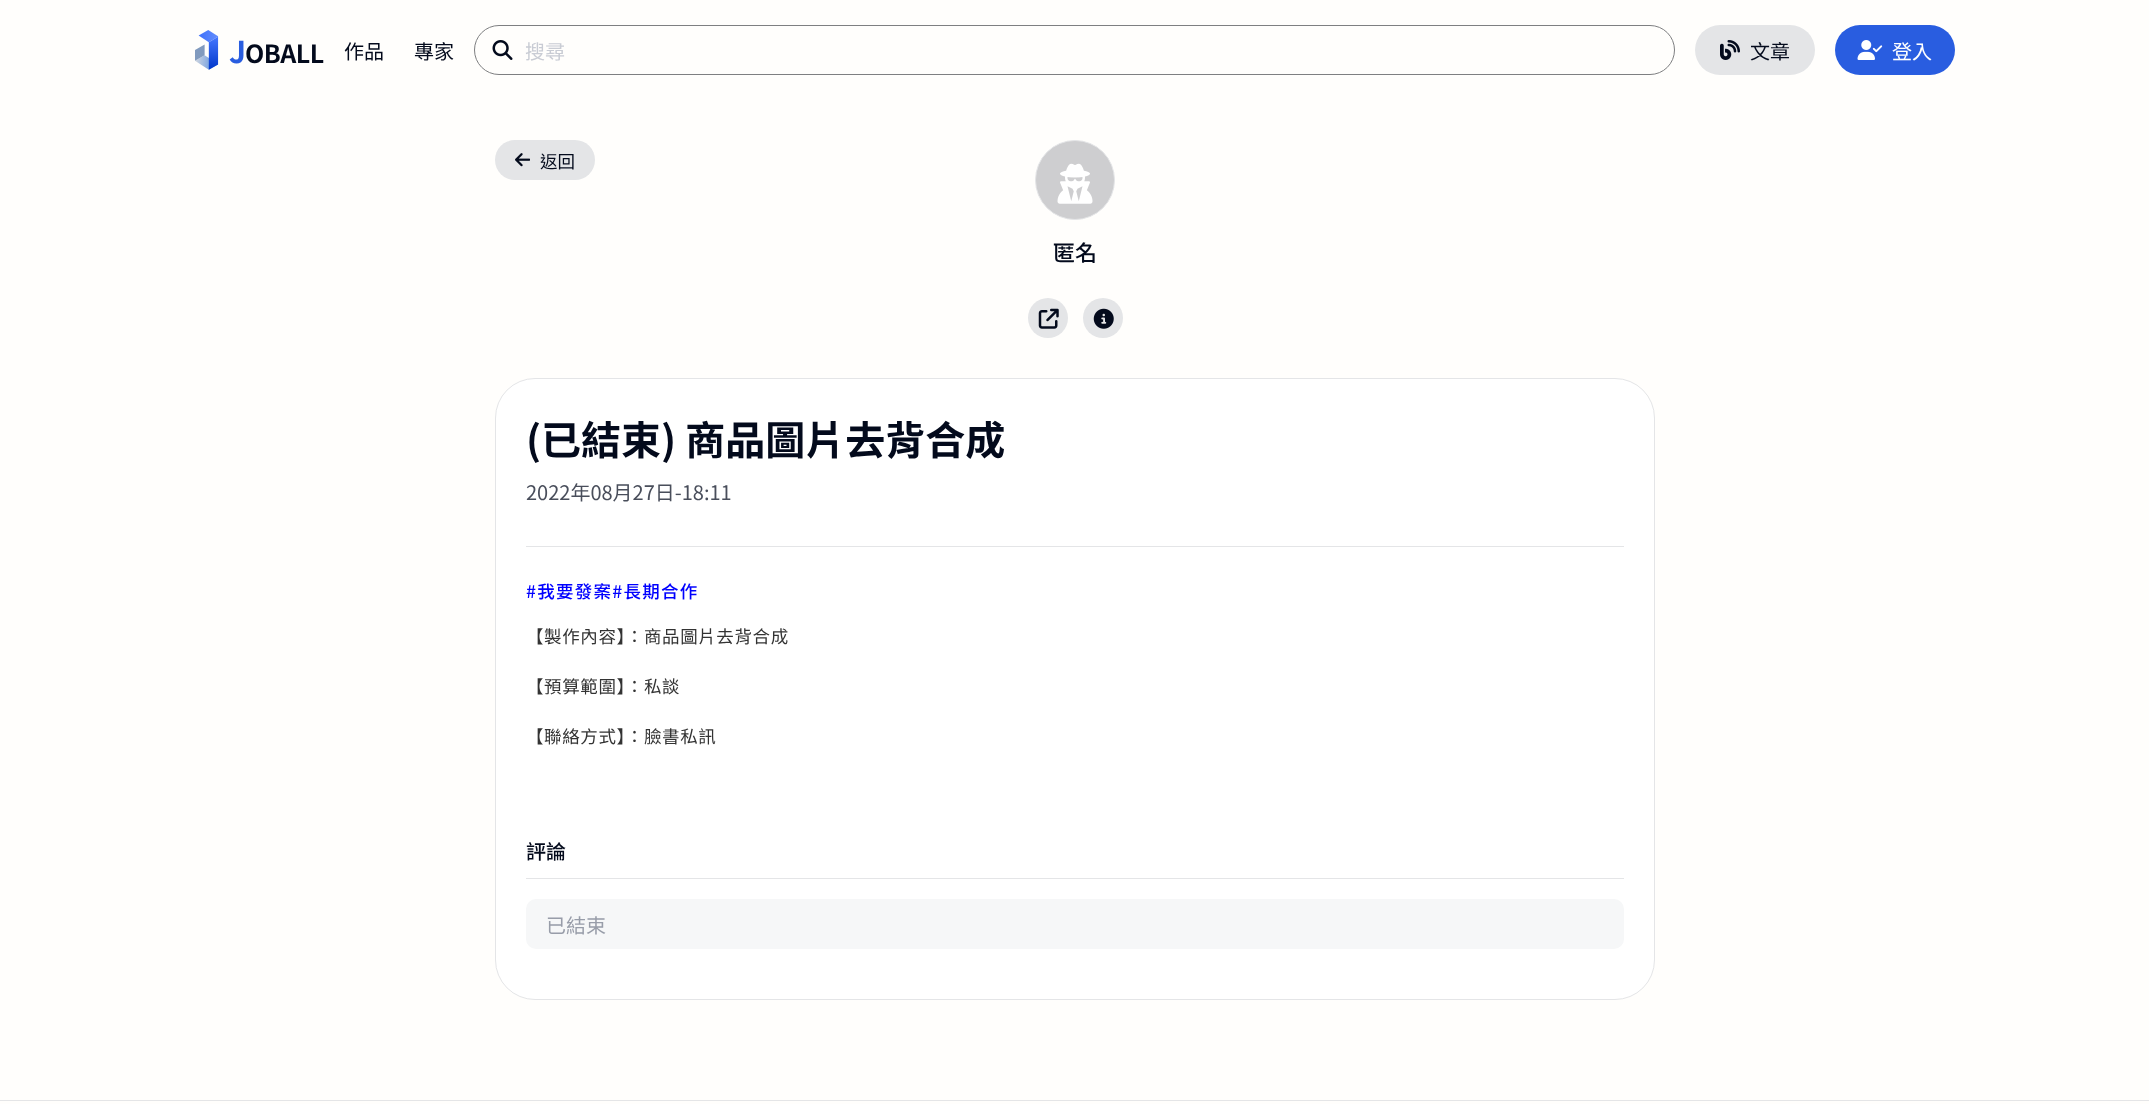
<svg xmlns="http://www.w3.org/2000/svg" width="2149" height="1104">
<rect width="100%" height="100%" fill="#fffefc"/>
<image x="195" y="30" width="24" height="40" href="media/1.png"/>
<text x="229" y="63" style="font-family:Noto Sans TC;font-size:30px;font-weight:bold;letter-spacing:-1px;fill:#295de0">J</text>
<text x="245" y="63" style="font-family:Noto Sans TC;font-size:25px;font-weight:bold;letter-spacing:-0.5px;fill:#030a1c">OBALL</text>
<text x="344" y="59" style="font-family:Noto Sans TC;font-size:20px;fill:#030a1c">作品</text>
<text x="414" y="59" style="font-family:Noto Sans TC;font-size:20px;fill:#030a1c">專家</text>
<rect x="474.5" y="25.5" width="1200" height="49" rx="24.5" fill="none" stroke="#7e7f81"/>
<image x="492" y="40" width="21" height="20" href="media/2.png"/>
<text x="525" y="59" style="font-family:Noto Sans TC;font-size:20px;fill:#c9ccd4">搜尋</text>
<rect x="1695" y="25" width="120" height="50" rx="25" fill="#e4e5e7"/>
<image x="1720" y="40" width="20" height="20" href="media/3.png"/>
<text x="1750" y="59" style="font-family:Noto Sans TC;font-size:20px;fill:#030a1c">文章</text>
<rect x="1835" y="25" width="120" height="50" rx="25" fill="#295de0"/>
<image x="1857" y="40" width="26" height="20" href="media/4.png"/>
<text x="1892" y="59" style="font-family:Noto Sans TC;font-size:20px;fill:#fff">登入</text>
<rect x="495" y="140" width="100" height="40" rx="20" fill="#e4e5e7"/>
<image x="515" y="153" width="15" height="14" href="media/5.png"/>
<text x="540" y="168" style="font-family:Noto Sans TC;font-size:17.5px;fill:#030a1c">返回</text>
<circle cx="1075" cy="180" r="39.5" fill="#ceced0" stroke="#e4e5e7"/>
<image x="1057" y="163" width="36" height="41" href="media/6.png"/>
<text x="1053" y="261" style="font-family:Noto Sans TC;font-size:22px;font-weight:500;fill:#030a1c">匿名</text>
<circle cx="1048" cy="318" r="20" fill="#e4e5e7"/>
<image x="1038" y="308" width="21" height="21" href="media/7.png"/>
<circle cx="1103" cy="318" r="20" fill="#e4e5e7"/>
<image x="1093" y="308" width="21" height="21" href="media/8.png"/>
<rect x="495.5" y="378.5" width="1159" height="621" rx="39.5" fill="#fff" stroke="#e4e5e7"/>
<rect x="526" y="546" width="1098" height="1" fill="#e4e5e7"/>
<text x="526" y="455" style="font-family:Noto Sans TC;font-size:40px;font-weight:bold;fill:#030a1c">(已結束) 商品圖片去背合成</text>
<text x="526" y="500" style="font-family:Noto Sans TC;font-size:20px;fill:#494e5b">2022年08月27日-18:11</text>
<text x="526" y="598" style="font-family:Noto Sans TC;font-size:17.5px;font-weight:500;letter-spacing:1.25px;fill:#00f">#我要發案#長期合作</text>
<text x="526" y="643" style="font-family:Noto Sans TC;font-size:17.5px;letter-spacing:0.6px;fill:#333">【製作內容】：商品圖片去背合成</text>
<text x="526" y="693" style="font-family:Noto Sans TC;font-size:17.5px;letter-spacing:0.6px;fill:#333">【預算範圍】：私談</text>
<text x="526" y="743" style="font-family:Noto Sans TC;font-size:17.5px;letter-spacing:0.6px;fill:#333">【聯絡方式】：臉書私訊</text>
<text x="526" y="859" style="font-family:Noto Sans TC;font-size:20px;font-weight:500;fill:#030a1c">評論</text>
<rect x="526" y="878" width="1098" height="1" fill="#e4e5e7"/>
<rect x="526" y="899" width="1098" height="50" rx="10" fill="#f6f7f8"/>
<text x="546" y="933" style="font-family:Noto Sans TC;font-size:20px;fill:#989da9">已結束</text>
<rect y="1100" width="2149" height="1" fill="#e4e5e7"/>
</svg>
